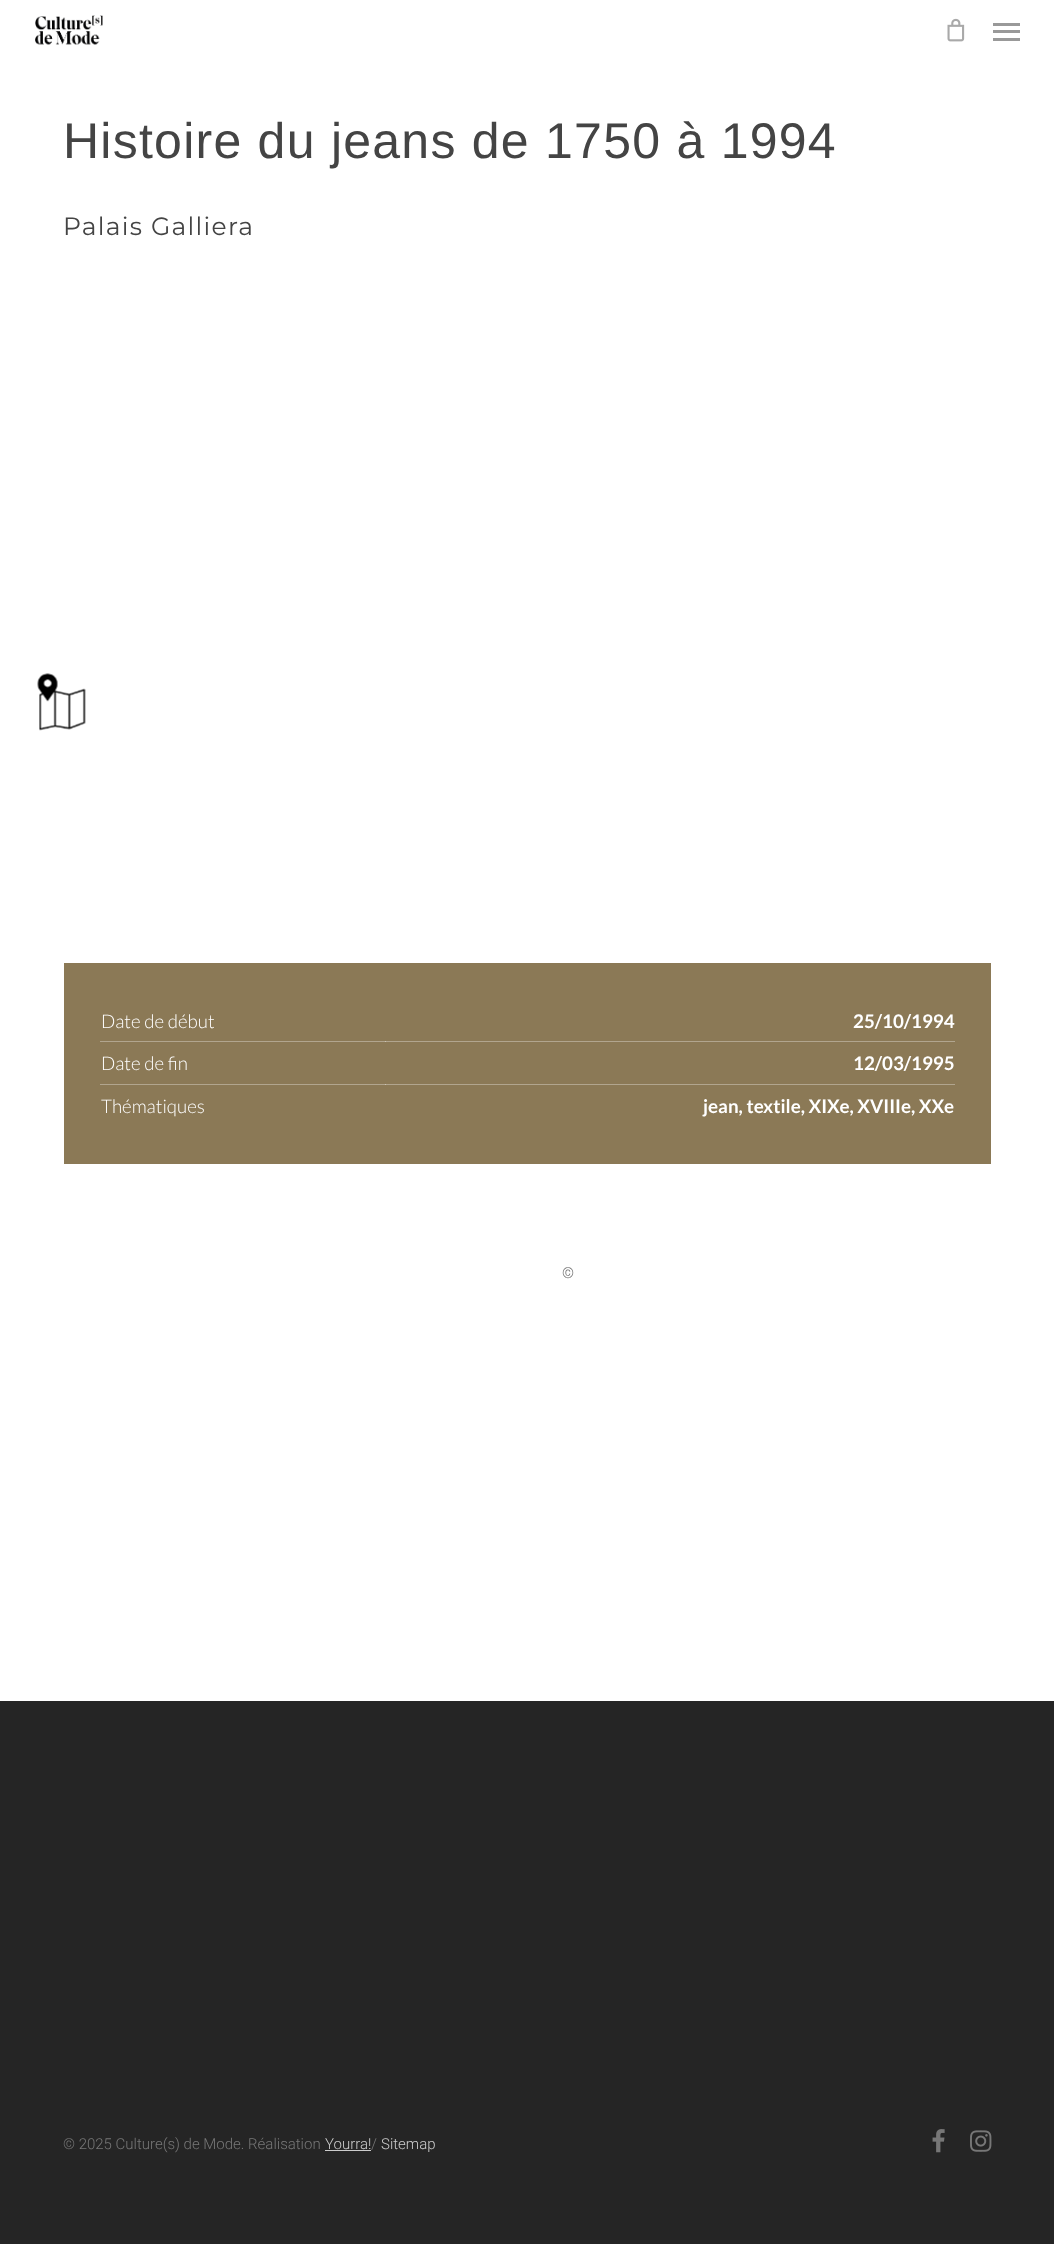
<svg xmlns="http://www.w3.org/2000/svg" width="1054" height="2244">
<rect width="100%" height="100%" fill="#fff"/>
<image x="35" y="15" width="68" height="30" href="media/1.png"/>
<image x="947" y="18" width="18" height="24" href="media/2.png"/>
<rect x="993" y="23" width="27" height="3" fill="#999"/>
<rect x="993" y="38" width="27" height="3" fill="#999"/>
<rect x="993" y="30" width="27" height="3" fill="#999"/>
<image x="37" y="673" width="49" height="58" href="media/3.png"/>
<text x="63" y="158" style="font-family:Liberation Sans;font-size:50px;letter-spacing:1.25px;fill:#444">Histoire du jeans de 1750 à 1994</text>
<text x="63" y="235" style="font-family:Montserrat;font-size:25px;letter-spacing:1.25px;fill:#444">Palais Galliera</text>
<rect x="64" y="963" width="927" height="201" fill="#8b7956"/>
<rect x="100" y="1041" width="855" height="1" fill="#b1a58e"/>
<rect x="100" y="1084" width="855" height="1" fill="#b1a58e"/>
<text x="101" y="1028" style="font-family:Lato;font-size:18.75px;font-weight:300;fill:#fff">Date de début</text>
<rect x="385" y="1041" width="1" height="1" fill="#cbc3b3"/>
<text x="853" y="1028" style="font-family:Lato;font-size:18.75px;font-weight:bold;fill:#fff">25/10/1994</text>
<text x="101" y="1070" style="font-family:Lato;font-size:18.75px;font-weight:300;fill:#fff">Date de fin</text>
<rect x="385" y="1084" width="1" height="1" fill="#cbc3b3"/>
<text x="853" y="1070" style="font-family:Lato;font-size:18.75px;font-weight:bold;fill:#fff">12/03/1995</text>
<text x="101" y="1113" style="font-family:Lato;font-size:18.75px;font-weight:300;fill:#fff">Thématiques</text>
<text x="703" y="1113" style="font-family:Lato;font-size:18.75px;font-weight:bold;fill:#fff">jean, textile, XIXe, XVIIIe, XXe</text>
<text x="562" y="1278" style="font-family:Roboto;font-size:15px;font-weight:300;fill:#676767">©</text>
<rect y="1701" width="1054" height="543" fill="#252525"/>
<text x="63" y="2149" style="font-family:Roboto;font-size:15px;font-weight:300;fill:#777">© 2025 Culture(s) de Mode. Réalisation</text>
<text x="325" y="2149" style="font-family:Roboto;font-size:15px;font-weight:300;fill:#ccc">Yourra!</text>
<rect x="325" y="2150" width="46" height="1" fill="#ccc"/>
<text x="371" y="2149" style="font-family:Roboto;font-size:15px;font-weight:300;fill:#777">/</text>
<text x="381" y="2149" style="font-family:Roboto;font-size:15px;font-weight:300;fill:#ccc">Sitemap</text>
<image x="932" y="2129" width="13" height="24" href="media/4.png"/>
<image x="970" y="2130" width="22" height="22" href="media/5.png"/>
</svg>
